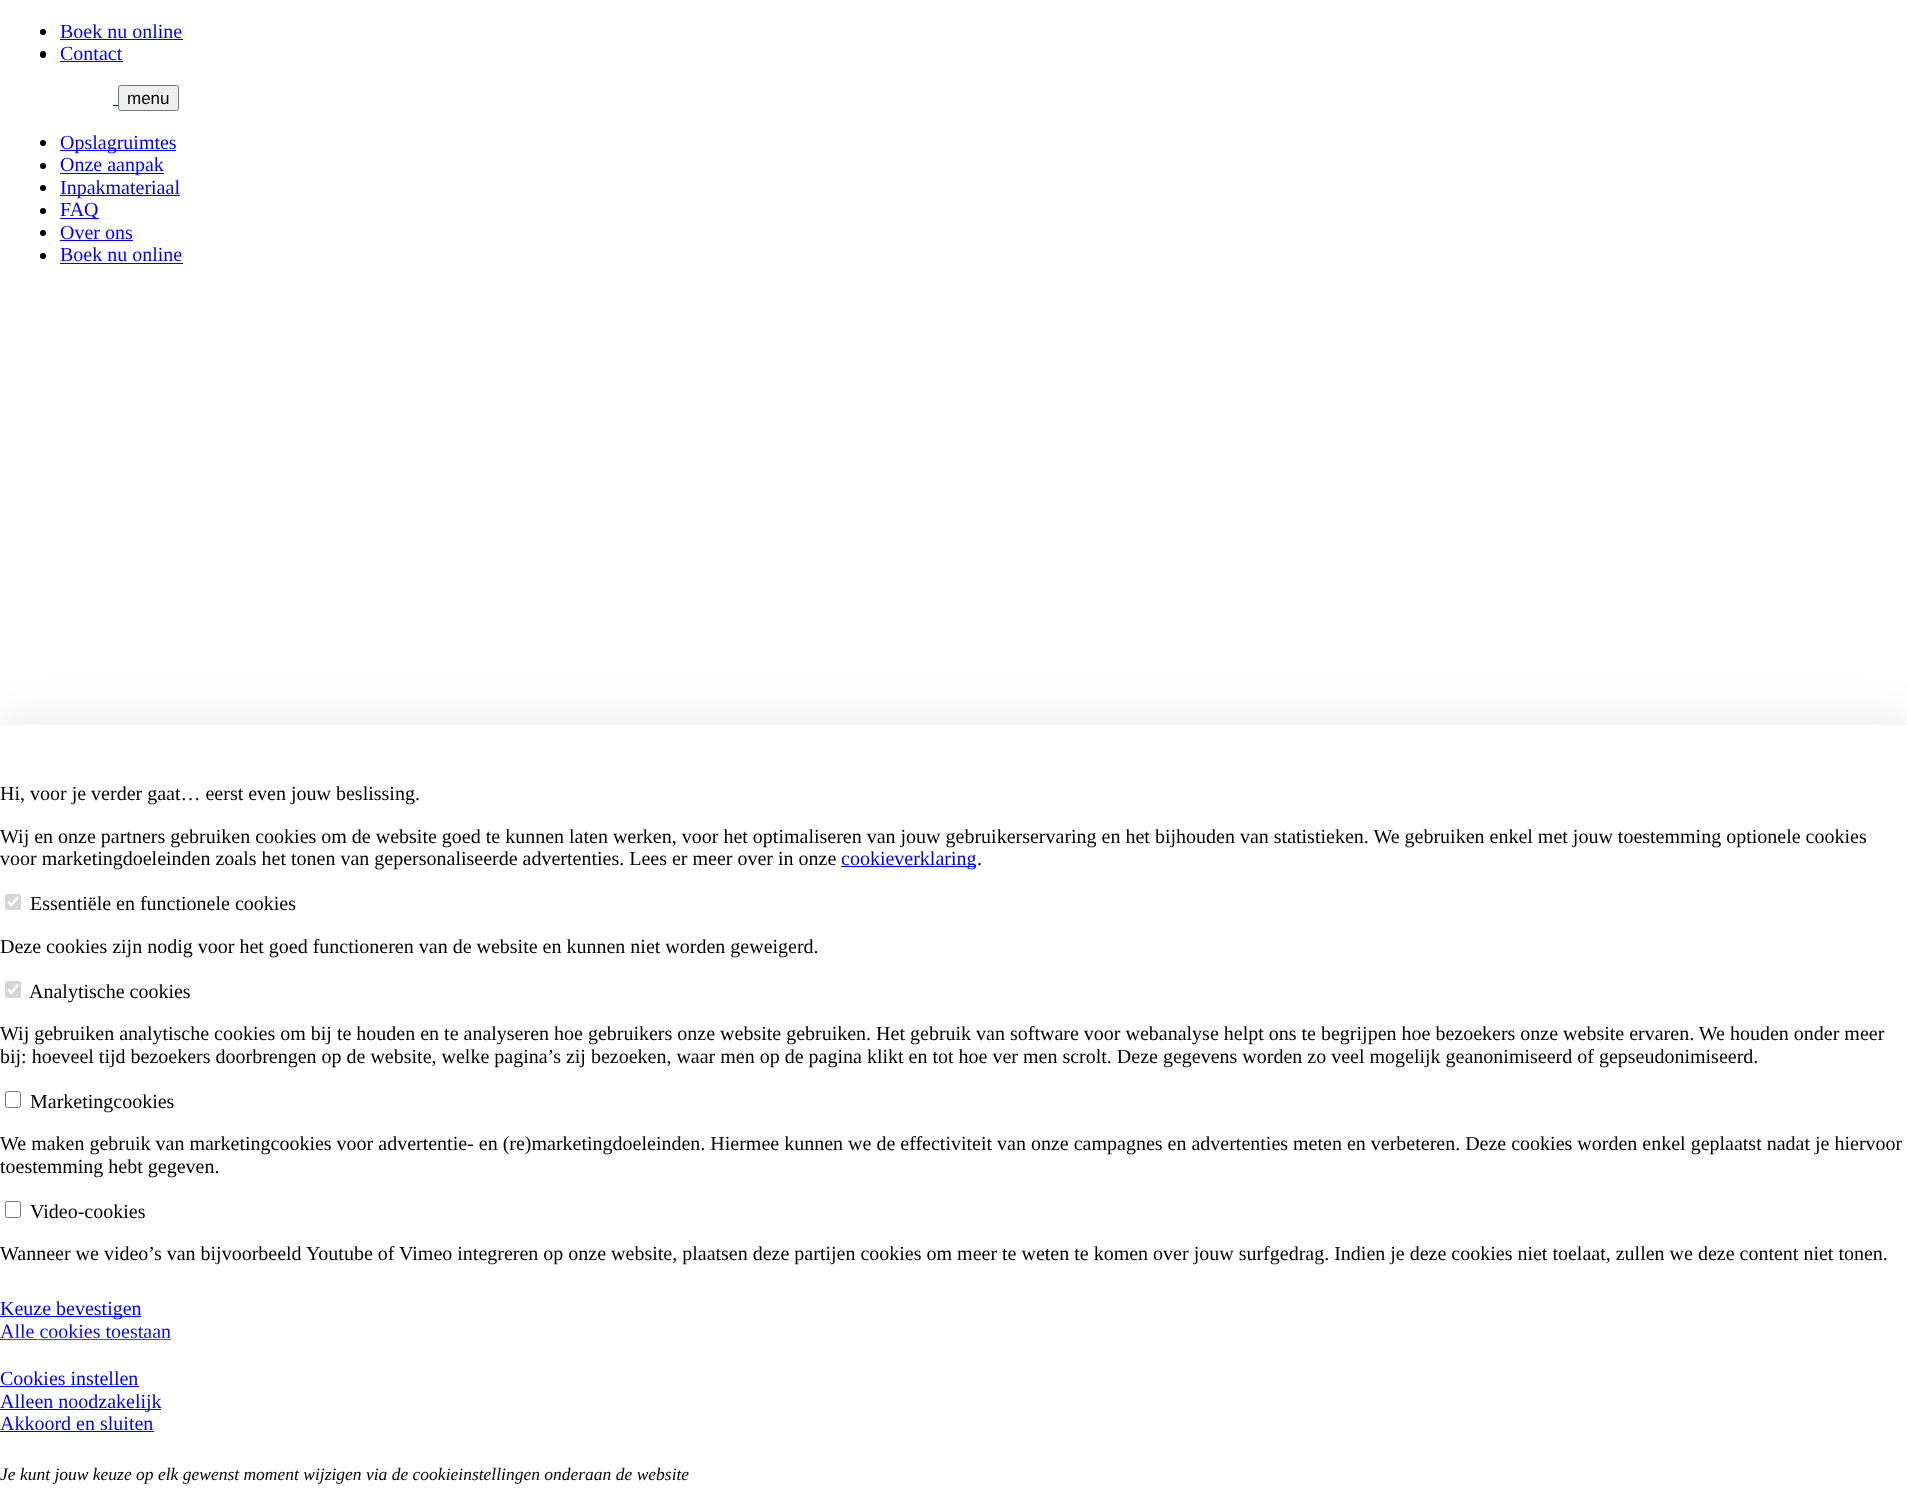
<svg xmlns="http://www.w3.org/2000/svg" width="1907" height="1502">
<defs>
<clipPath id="clip1"><rect x="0" y="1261" width="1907" height="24"/></clipPath>
<clipPath id="clip2"><rect x="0" y="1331" width="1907" height="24"/></clipPath>
</defs>
<rect width="100%" height="100%" fill="#fff"/>
<circle cx="43" cy="32" r="3" fill="#000"/>
<text x="60" y="38" style="font-family:Liberation Serif;font-size:20px;fill:#00e">Boek nu online</text>
<rect x="60" y="39" width="123" height="1" fill="#00e"/>
<rect x="40" y="51" width="6" height="7" rx="3" fill="#000"/>
<text x="60" y="60" style="font-family:Liberation Serif;font-size:20px;fill:#00e">Contact</text>
<rect x="60" y="61" width="63" height="1" fill="#00e"/>
<rect x="118.5" y="85.5" width="60" height="25" rx="2" fill="#efefef" stroke="#767676"/>
<text x="127" y="104" style="font-family:Liberation Sans;font-size:17px;fill:#000">menu</text>
<rect x="113" y="105" width="5" height="1" fill="#00e"/>
<circle cx="43" cy="143" r="3" fill="#000"/>
<rect x="60" y="150" width="116" height="1" fill="#00e"/>
<text x="60" y="149" style="font-family:Liberation Serif;font-size:20px;fill:#00e">Opslagruimtes</text>
<circle cx="43" cy="166" r="3" fill="#000"/>
<rect x="60" y="173" width="104" height="1" fill="#00e"/>
<text x="60" y="171" style="font-family:Liberation Serif;font-size:20px;fill:#00e">Onze aanpak</text>
<circle cx="43" cy="188" r="3" fill="#000"/>
<rect x="60" y="195" width="120" height="1" fill="#00e"/>
<text x="60" y="194" style="font-family:Liberation Serif;font-size:20px;fill:#00e">Inpakmateriaal</text>
<circle cx="43" cy="211" r="3" fill="#000"/>
<rect x="60" y="218" width="39" height="1" fill="#00e"/>
<text x="60" y="216" style="font-family:Liberation Serif;font-size:20px;fill:#00e">FAQ</text>
<circle cx="43" cy="233" r="3" fill="#000"/>
<text x="60" y="239" style="font-family:Liberation Serif;font-size:20px;fill:#00e">Over ons</text>
<rect x="60" y="240" width="73" height="1" fill="#00e"/>
<circle cx="43" cy="256" r="3" fill="#000"/>
<text x="60" y="261" style="font-family:Liberation Serif;font-size:20px;fill:#00e">Boek nu online</text>
<rect x="60" y="263" width="123" height="1" fill="#00e"/>
<rect y="725" width="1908" height="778" fill="#0000001a" filter="blur(25px)"/>
<rect y="725" width="1907" height="777" fill="#fff"/>
<text x="0" y="800" style="font-family:Liberation Serif;font-size:20px;fill:#000">Hi, voor je verder gaat… eerst even jouw beslissing.</text>
<text x="0" y="843" style="font-family:Liberation Serif;font-size:20px;fill:#000">Wij en onze partners gebruiken cookies om de website goed te kunnen laten werken, voor het optimaliseren van jouw gebruikerservaring en het bijhouden van statistieken. We gebruiken enkel met jouw toestemming optionele cookies</text>
<text x="0" y="865" style="font-family:Liberation Serif;font-size:20px;fill:#000">voor marketingdoeleinden zoals het tonen van gepersonaliseerde advertenties. Lees er meer over in onze</text>
<rect x="841" y="866" width="135" height="1" fill="#00e"/>
<text x="841" y="865" style="font-family:Liberation Serif;font-size:20px;fill:#00e">cookieverklaring</text>
<text x="977" y="865" style="font-family:Liberation Serif;font-size:20px;fill:#000">.</text>
<rect x="5" y="894" width="16" height="16" rx="2.5" fill="#d6d6d6"/>
<path d="M8 902l3.5 3l6.5-8" fill="none" stroke="#fff" stroke-width="2.6"/>
<text x="30" y="910" style="font-family:Liberation Serif;font-size:20px;fill:#000">Essentiële en functionele cookies</text>
<text x="0" y="953" style="font-family:Liberation Serif;font-size:20px;fill:#000">Deze cookies zijn nodig voor het goed functioneren van de website en kunnen niet worden geweigerd.</text>
<rect x="5" y="981" width="16" height="17" rx="2.5" fill="#d6d6d6"/>
<path d="M8 989.5l3.5 3l6.5-8" fill="none" stroke="#fff" stroke-width="2.6"/>
<text x="29" y="998" style="font-family:Liberation Serif;font-size:20px;fill:#000">Analytische cookies</text>
<text x="0" y="1040" style="font-family:Liberation Serif;font-size:20px;fill:#000">Wij gebruiken analytische cookies om bij te houden en te analyseren hoe gebruikers onze website gebruiken. Het gebruik van software voor webanalyse helpt ons te begrijpen hoe bezoekers onze website ervaren. We houden onder meer</text>
<text x="0" y="1063" style="font-family:Liberation Serif;font-size:20px;fill:#000">bij: hoeveel tijd bezoekers doorbrengen op de website, welke pagina’s zij bezoeken, waar men op de pagina klikt en tot hoe ver men scrolt. Deze gegevens worden zo veel mogelijk geanonimiseerd of gepseudonimiseerd.</text>
<rect x="5.5" y="1091.5" width="15" height="16" rx="2" fill="none" stroke="#767676"/>
<text x="30" y="1108" style="font-family:Liberation Serif;font-size:20px;fill:#000">Marketingcookies</text>
<text x="0" y="1150" style="font-family:Liberation Serif;font-size:20px;fill:#000">We maken gebruik van marketingcookies voor advertentie- en (re)marketingdoeleinden. Hiermee kunnen we de effectiviteit van onze campagnes en advertenties meten en verbeteren. Deze cookies worden enkel geplaatst nadat je hiervoor</text>
<text x="0" y="1173" style="font-family:Liberation Serif;font-size:20px;fill:#000">toestemming hebt gegeven.</text>
<rect x="5.5" y="1201.5" width="15" height="16" rx="2" fill="none" stroke="#767676"/>
<text x="30" y="1218" style="font-family:Liberation Serif;font-size:20px;fill:#000">Video-cookies</text>
<text x="0" y="1260" style="font-family:Liberation Serif;font-size:20px;fill:#000">Wanneer we video’s van bijvoorbeeld Youtube of Vimeo integreren op onze website, plaatsen deze partijen cookies om meer te weten te komen over jouw surfgedrag. Indien je deze cookies niet toelaat, zullen we deze content niet tonen.</text>
<g clip-path="url(#clip1)">
<rect y="1273" width="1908" height="70" fill="#fff" filter="blur(6px)"/>
</g>
<rect y="1316" width="141" height="1" fill="#00e"/>
<text x="0" y="1315" style="font-family:Liberation Serif;font-size:20px;fill:#00e">Keuze bevestigen</text>
<text x="0" y="1338" style="font-family:Liberation Serif;font-size:20px;fill:#00e">Alle cookies toestaan</text>
<rect y="1339" width="171" height="1" fill="#00e"/>
<g clip-path="url(#clip2)">
<rect y="1343" width="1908" height="92" fill="#fff" filter="blur(6px)"/>
</g>
<text x="0" y="1385" style="font-family:Liberation Serif;font-size:20px;fill:#00e">Cookies instellen</text>
<rect y="1386" width="139" height="1" fill="#00e"/>
<rect y="1409" width="161" height="1" fill="#00e"/>
<text x="0" y="1408" style="font-family:Liberation Serif;font-size:20px;fill:#00e">Alleen noodzakelijk</text>
<text x="0" y="1430" style="font-family:Liberation Serif;font-size:20px;fill:#00e">Akkoord en sluiten</text>
<rect y="1431" width="154" height="1" fill="#00e"/>
<text x="0" y="1480" style="font-family:Liberation Serif;font-size:17.5px;font-style:italic;fill:#000">Je kunt jouw keuze op elk gewenst moment wijzigen via de cookieinstellingen onderaan de website</text>
</svg>
